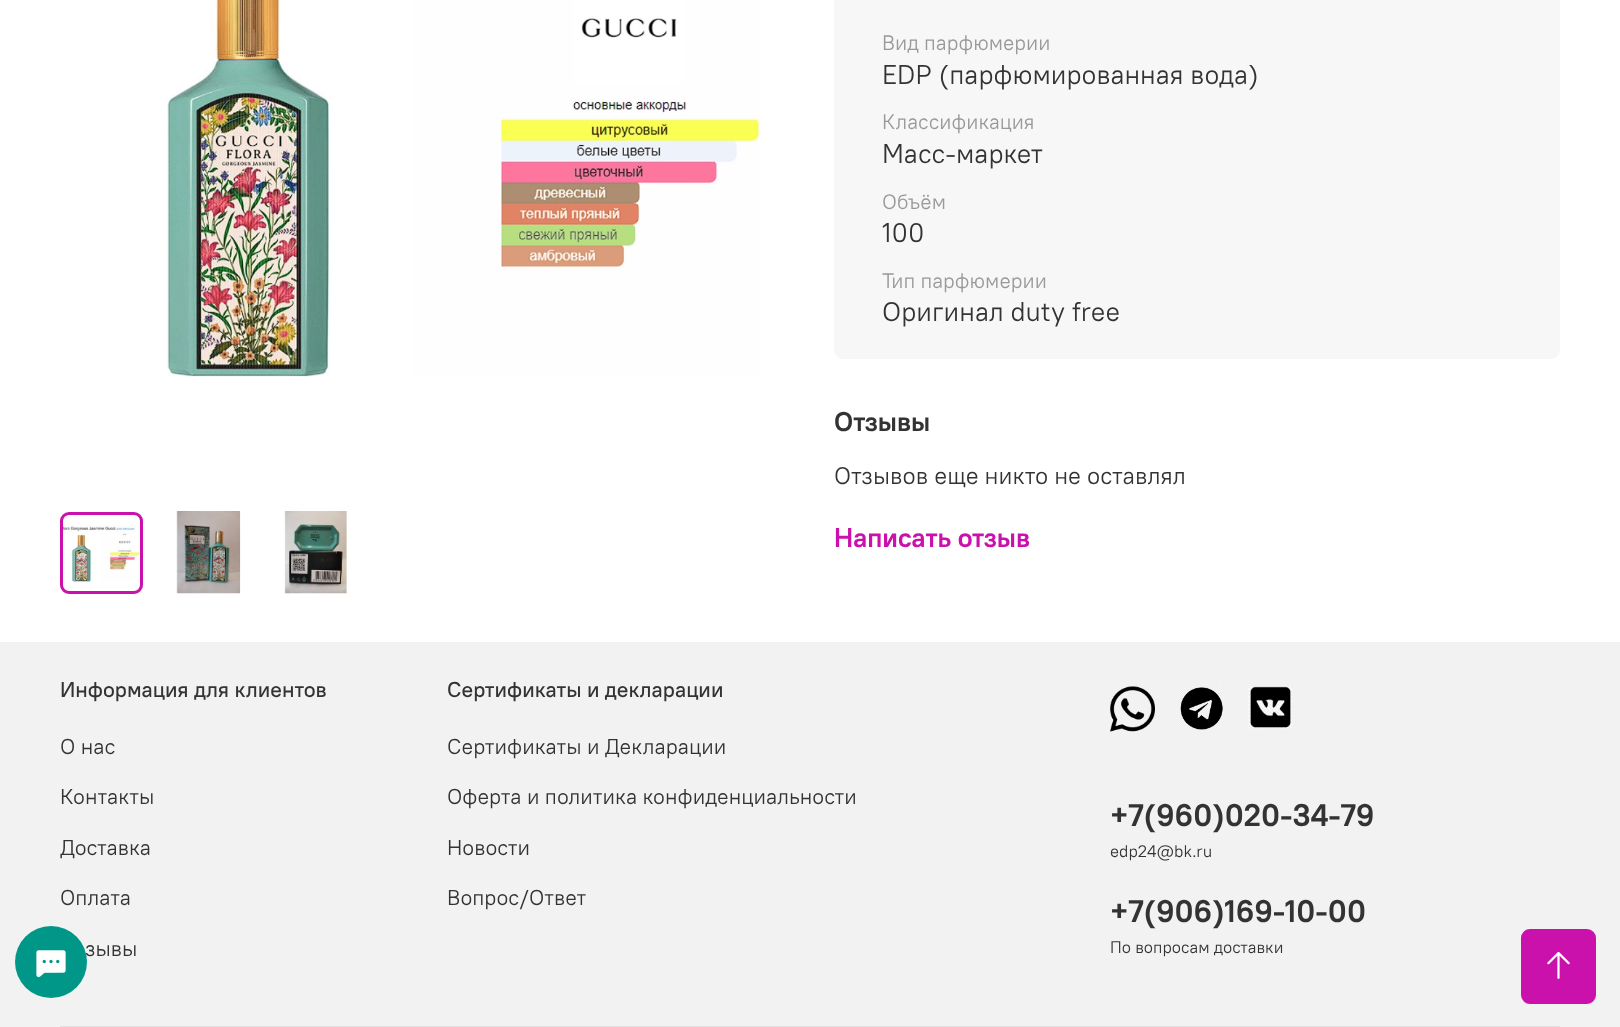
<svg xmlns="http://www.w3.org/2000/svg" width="1620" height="1027">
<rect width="100%" height="100%" fill="#fff"/>
<rect y="642" width="1620" height="385" fill="#f2f2f2"/>
<text x="85" y="956" style="font-family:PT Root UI;font-size:21.6px;fill:#333">зывы</text>
<circle cx="51" cy="962" r="36" fill="#009788"/>
<image x="36" y="950" width="30" height="28" href="media/1.png"/>
<image x="167" y="0" width="593" height="377" href="media/2.png"/>
<image x="63" y="525" width="77" height="57" href="media/3.png"/>
<rect x="61.5" y="513.5" width="80" height="79" rx="7.5" fill="none" stroke="#cb11ab" stroke-width="3"/>
<image x="176" y="511" width="65" height="83" href="media/4.png"/>
<image x="284" y="511" width="63" height="83" href="media/5.png"/>
<rect x="834" y="-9" width="726" height="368" rx="9" fill="#f7f7f7"/>
<text x="882" y="50" style="font-family:PT Root UI;font-size:21px;fill:#999">Вид парфюмерии</text>
<text x="882" y="84" style="font-family:PT Root UI;font-size:27px;fill:#333">EDP (парфюмированная вода)</text>
<text x="882" y="129" style="font-family:PT Root UI;font-size:21px;fill:#999">Классификация</text>
<text x="882" y="163" style="font-family:PT Root UI;font-size:27px;fill:#333">Масс-маркет</text>
<text x="882" y="209" style="font-family:PT Root UI;font-size:21px;fill:#999">Объём</text>
<text x="882" y="242" style="font-family:PT Root UI;font-size:27px;fill:#333">100</text>
<text x="882" y="288" style="font-family:PT Root UI;font-size:21px;fill:#999">Тип парфюмерии</text>
<text x="882" y="321" style="font-family:PT Root UI;font-size:27px;fill:#333">Оригинал duty free</text>
<text x="834" y="431" style="font-family:PT Root UI;font-size:27px;font-weight:bold;fill:#333">Отзывы</text>
<text x="834" y="484" style="font-family:PT Root UI;font-size:24px;fill:#333">Отзывов еще никто не оставлял</text>
<text x="834" y="547" style="font-family:PT Root UI;font-size:27px;font-weight:bold;fill:#cb11ab">Написать отзыв</text>
<text x="60" y="697" style="font-family:PT Root UI;font-size:21.6px;font-weight:500;fill:#333">Информация для клиентов</text>
<text x="60" y="754" style="font-family:PT Root UI;font-size:21.6px;fill:#333">О нас</text>
<text x="60" y="804" style="font-family:PT Root UI;font-size:21.6px;fill:#333">Контакты</text>
<text x="60" y="855" style="font-family:PT Root UI;font-size:21.6px;fill:#333">Доставка</text>
<text x="60" y="905" style="font-family:PT Root UI;font-size:21.6px;fill:#333">Оплата</text>
<text x="447" y="697" style="font-family:PT Root UI;font-size:21.6px;font-weight:500;fill:#333">Сертификаты и декларации</text>
<text x="447" y="754" style="font-family:PT Root UI;font-size:21.6px;fill:#333">Сертификаты и Декларации</text>
<text x="447" y="804" style="font-family:PT Root UI;font-size:21.6px;fill:#333">Оферта и политика конфиденциальности</text>
<text x="447" y="855" style="font-family:PT Root UI;font-size:21.6px;fill:#333">Новости</text>
<text x="447" y="905" style="font-family:PT Root UI;font-size:21.6px;fill:#333">Вопрос/Ответ</text>
<image x="1110" y="686" width="45" height="46" href="media/6.png"/>
<image x="1179" y="686" width="45" height="44" href="media/7.png"/>
<image x="1248" y="686" width="44" height="43" href="media/8.png"/>
<text x="1110" y="826" style="font-family:PT Root UI;font-size:31.25px;font-weight:bold;fill:#333">+7(960)020-34-79</text>
<text x="1110" y="857" style="font-family:PT Root UI;font-size:16.75px;fill:#333">edp24@bk.ru</text>
<text x="1110" y="922" style="font-family:PT Root UI;font-size:31.25px;font-weight:bold;fill:#333">+7(906)169-10-00</text>
<text x="1110" y="953" style="font-family:PT Root UI;font-size:16.75px;fill:#333">По вопросам доставки</text>
<rect x="60" y="1026" width="1500" height="1" fill="#e1e1e1"/>
<rect x="1522" y="930" width="73" height="73" rx="8" fill="#cb11ab" stroke="#cb11ab" stroke-width="2"/>
<image x="1547" y="951" width="23" height="28" href="media/9.png"/>
</svg>
